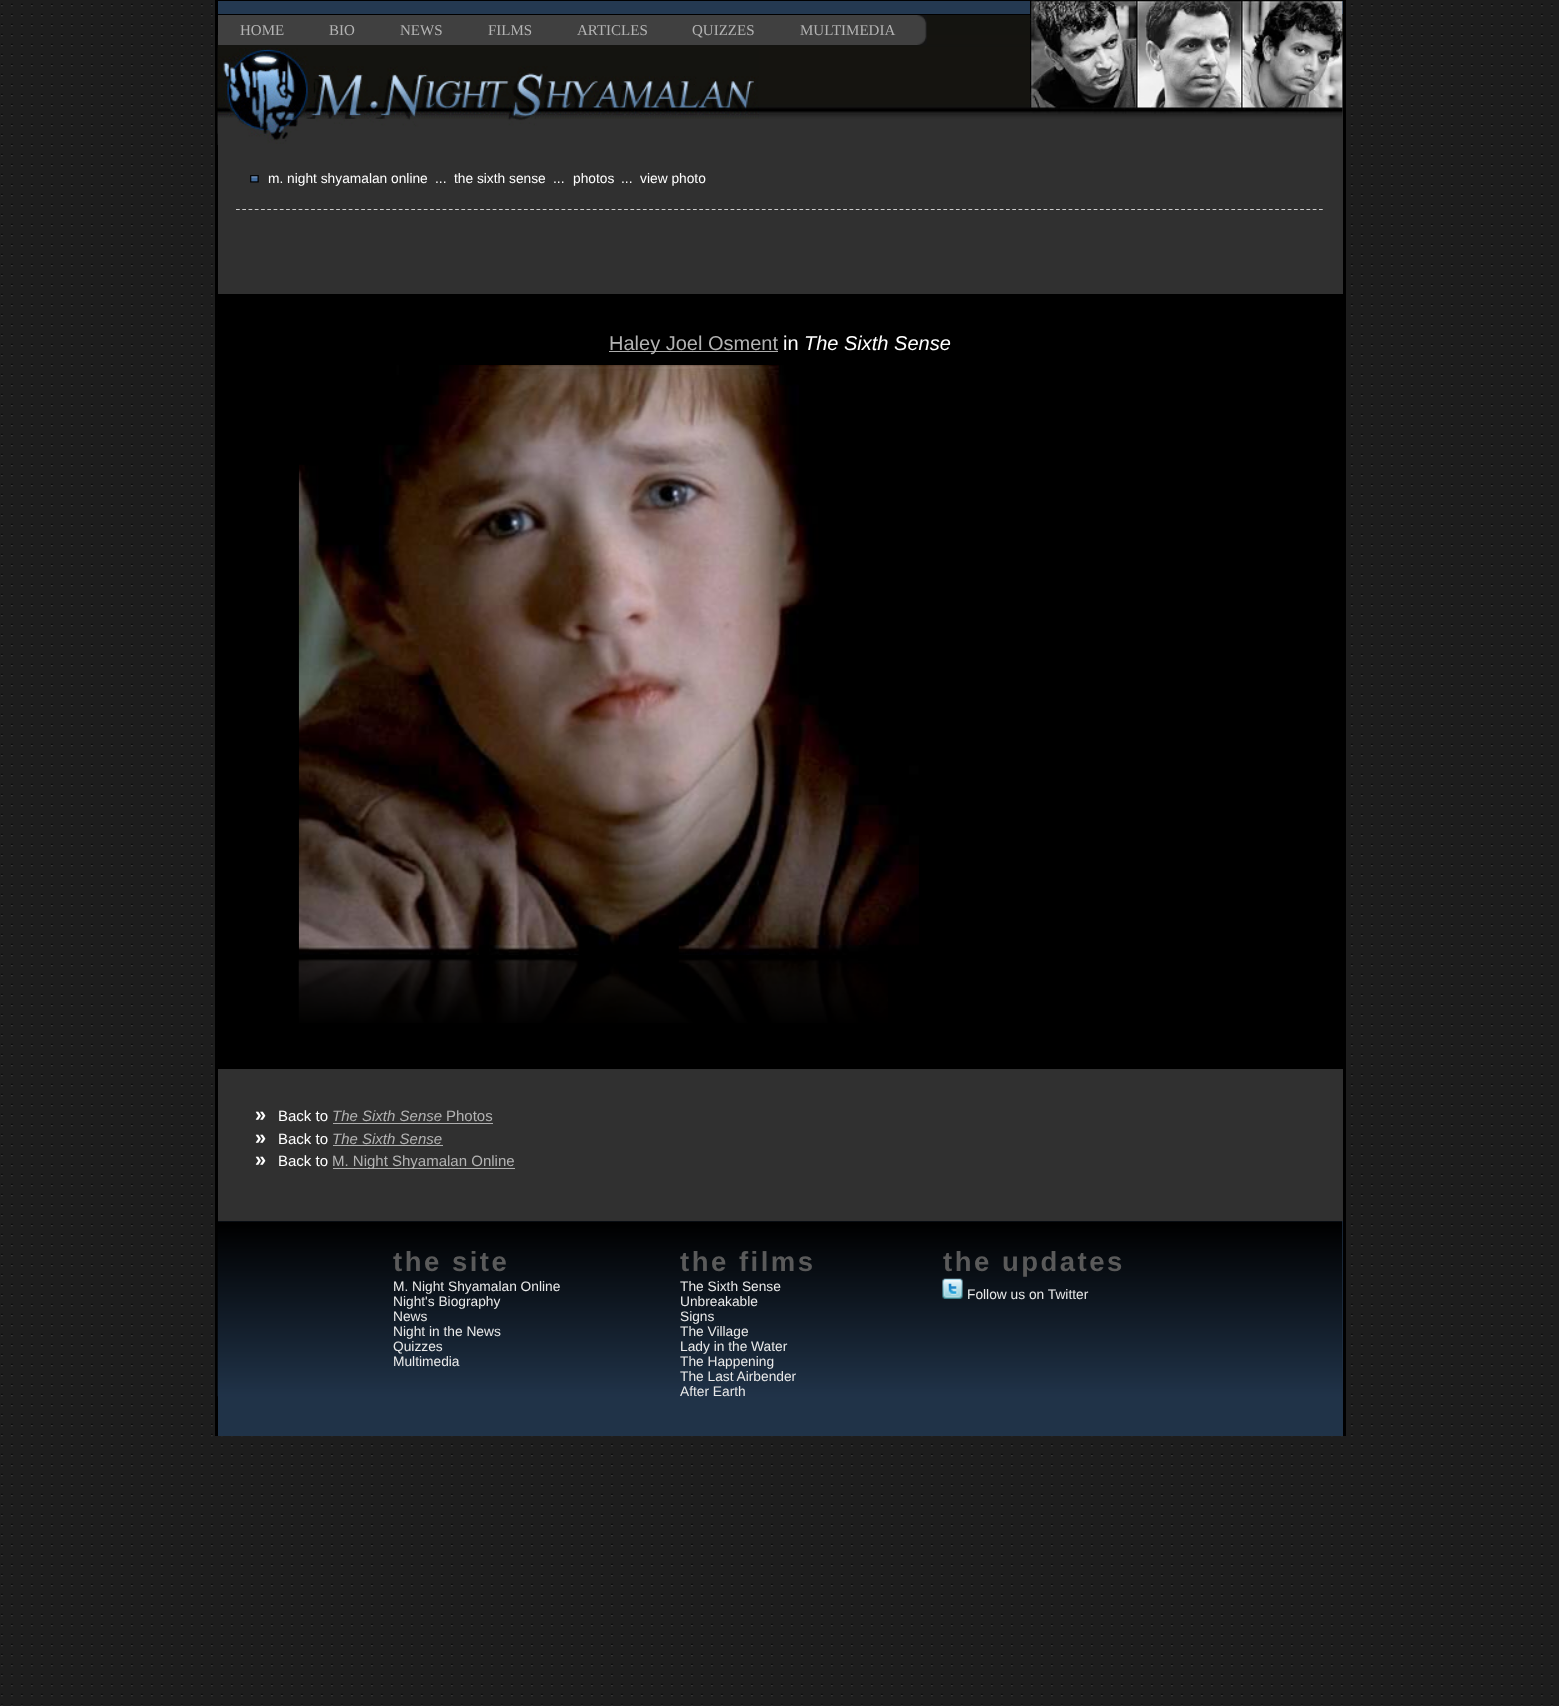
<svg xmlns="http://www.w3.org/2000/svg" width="1559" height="1706">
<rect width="100%" height="100%" fill="#1d1d1d"/>
<image x="1" y="3" width="1552" height="1703" href="media/1.png"/>
<rect x="1343" width="3" height="1436" fill="#000"/>
<rect x="215" width="3" height="1436" fill="#000"/>
<rect x="927" y="15" width="416" height="20" fill="#141410"/>
<rect x="218" width="1125" height="1" fill="#000"/>
<rect x="218" y="1" width="1125" height="13" fill="#243951"/>
<rect x="218" y="14" width="1125" height="1" fill="#000"/>
<rect x="758" y="35" width="585" height="110" fill="#303030"/>
<image x="217" y="35" width="1126" height="99" href="media/3.png"/>
<rect x="218" y="15" width="700" height="30" fill="#404040"/>
<text x="240" y="35" style="font-family:Liberation Serif;font-size:15px;fill:#b3b3b3">HOME</text>
<text x="329" y="35" style="font-family:Liberation Serif;font-size:15px;fill:#b3b3b3">BIO</text>
<text x="400" y="35" style="font-family:Liberation Serif;font-size:15px;fill:#b3b3b3">NEWS</text>
<text x="488" y="35" style="font-family:Liberation Serif;font-size:15px;fill:#b3b3b3">FILMS</text>
<text x="577" y="35" style="font-family:Liberation Serif;font-size:15px;fill:#b3b3b3">ARTICLES</text>
<text x="692" y="35" style="font-family:Liberation Serif;font-size:15px;fill:#b3b3b3">QUIZZES</text>
<text x="800" y="35" style="font-family:Liberation Serif;font-size:15px;fill:#b3b3b3">MULTIMEDIA</text>
<image x="917" y="15" width="10" height="30" href="media/2.png"/>
<image x="217" y="48" width="542" height="97" href="media/4.png"/>
<image x="1030" y="0" width="313" height="114" href="media/5.png"/>
<rect x="218" y="145" width="1125" height="1076" fill="#303030"/>
<image x="250" y="175" width="9" height="8" href="media/6.png"/>
<text x="268" y="183" style="font-family:Liberation Sans;font-size:13.75px;fill:#fff">m. night shyamalan online</text>
<text x="435" y="183" style="font-family:Liberation Sans;font-size:13.75px;fill:#fff">...</text>
<text x="454" y="183" style="font-family:Liberation Sans;font-size:13.75px;fill:#fff">the sixth sense</text>
<text x="553" y="183" style="font-family:Liberation Sans;font-size:13.75px;fill:#fff">...</text>
<text x="573" y="183" style="font-family:Liberation Sans;font-size:13.75px;fill:#fff">photos</text>
<text x="621" y="183" style="font-family:Liberation Sans;font-size:13.75px;fill:#fff" xml:space="preserve">...  view photo</text>
<path d="M236 209.5h1088" fill="none" stroke="#ccc" stroke-width="1.2" stroke-dasharray="3.75 2.51"/>
<rect x="218" y="294" width="1125" height="775" fill="#000"/>
<rect x="609" y="351" width="169" height="1" fill="#aeaeae"/>
<text x="609" y="350" style="font-family:Liberation Sans;font-size:20px;fill:#b3b3b3">Haley Joel Osment</text>
<text x="783" y="350" style="font-family:Liberation Sans;font-size:20px;fill:#fff">in</text>
<text x="804" y="350" style="font-family:Liberation Sans;font-size:20px;font-style:italic;fill:#fff">The Sixth Sense</text>
<image x="298" y="365" width="621" height="590" href="media/7.png"/>
<image x="298" y="959" width="590" height="64" href="media/8.png"/>
<text x="255" y="1121" style="font-family:Liberation Sans;font-size:20px;font-weight:bold;fill:#fff">»</text>
<text x="278" y="1121" style="font-family:Liberation Sans;font-size:15px;fill:#fff">Back to</text>
<text x="332" y="1121" style="font-family:Liberation Sans;font-size:15px;font-style:italic;fill:#b3b3b3">The Sixth Sense</text>
<rect x="333" y="1123" width="160" height="1" fill="#aeaeae"/>
<text x="446" y="1121" style="font-family:Liberation Sans;font-size:15px;fill:#b3b3b3">Photos</text>
<text x="255" y="1144" style="font-family:Liberation Sans;font-size:20px;font-weight:bold;fill:#fff">»</text>
<text x="278" y="1144" style="font-family:Liberation Sans;font-size:15px;fill:#fff">Back to</text>
<text x="332" y="1144" style="font-family:Liberation Sans;font-size:15px;font-style:italic;fill:#b3b3b3">The Sixth Sense</text>
<rect x="333" y="1145" width="110" height="1" fill="#aeaeae"/>
<text x="255" y="1166" style="font-family:Liberation Sans;font-size:20px;font-weight:bold;fill:#fff">»</text>
<text x="278" y="1166" style="font-family:Liberation Sans;font-size:15px;fill:#fff">Back to</text>
<rect x="333" y="1168" width="182" height="1" fill="#aeaeae"/>
<text x="332" y="1166" style="font-family:Liberation Sans;font-size:15px;fill:#b3b3b3">M. Night Shyamalan Online</text>
<rect x="218" y="1221" width="1125" height="215" fill="#203348"/>
<image x="217" y="1221" width="1126" height="176" href="media/9.png"/>
<text x="393" y="1271" style="font-family:Liberation Sans;font-size:27.5px;font-weight:bold;letter-spacing:2.5px;fill:#5a5a5a">the site</text>
<text x="393" y="1291" style="font-family:Liberation Sans;font-size:13.75px;fill:#e9e9e9">M. Night Shyamalan Online</text>
<text x="393" y="1306" style="font-family:Liberation Sans;font-size:13.75px;fill:#e9e9e9">Night's Biography</text>
<text x="393" y="1321" style="font-family:Liberation Sans;font-size:13.75px;fill:#e9e9e9">News</text>
<text x="393" y="1336" style="font-family:Liberation Sans;font-size:13.75px;fill:#e9e9e9">Night in the News</text>
<text x="393" y="1351" style="font-family:Liberation Sans;font-size:13.75px;fill:#e9e9e9">Quizzes</text>
<text x="393" y="1366" style="font-family:Liberation Sans;font-size:13.75px;fill:#e9e9e9">Multimedia</text>
<text x="680" y="1271" style="font-family:Liberation Sans;font-size:27.5px;font-weight:bold;letter-spacing:2.5px;fill:#5a5a5a">the films</text>
<text x="680" y="1291" style="font-family:Liberation Sans;font-size:13.75px;fill:#e9e9e9">The Sixth Sense</text>
<text x="680" y="1306" style="font-family:Liberation Sans;font-size:13.75px;fill:#e9e9e9">Unbreakable</text>
<text x="680" y="1321" style="font-family:Liberation Sans;font-size:13.75px;fill:#e9e9e9">Signs</text>
<text x="680" y="1336" style="font-family:Liberation Sans;font-size:13.75px;fill:#e9e9e9">The Village</text>
<text x="680" y="1351" style="font-family:Liberation Sans;font-size:13.75px;fill:#e9e9e9">Lady in the Water</text>
<text x="680" y="1366" style="font-family:Liberation Sans;font-size:13.75px;fill:#e9e9e9">The Happening</text>
<text x="680" y="1381" style="font-family:Liberation Sans;font-size:13.75px;fill:#e9e9e9">The Last Airbender</text>
<text x="680" y="1396" style="font-family:Liberation Sans;font-size:13.75px;fill:#e9e9e9">After Earth</text>
<text x="943" y="1271" style="font-family:Liberation Sans;font-size:27.5px;font-weight:bold;letter-spacing:2.5px;fill:#5a5a5a">the updates</text>
<image x="942" y="1278" width="21" height="21" href="media/10.png"/>
<text x="967" y="1299" style="font-family:Liberation Sans;font-size:13.75px;fill:#e9e9e9">Follow us on Twitter</text>
</svg>
